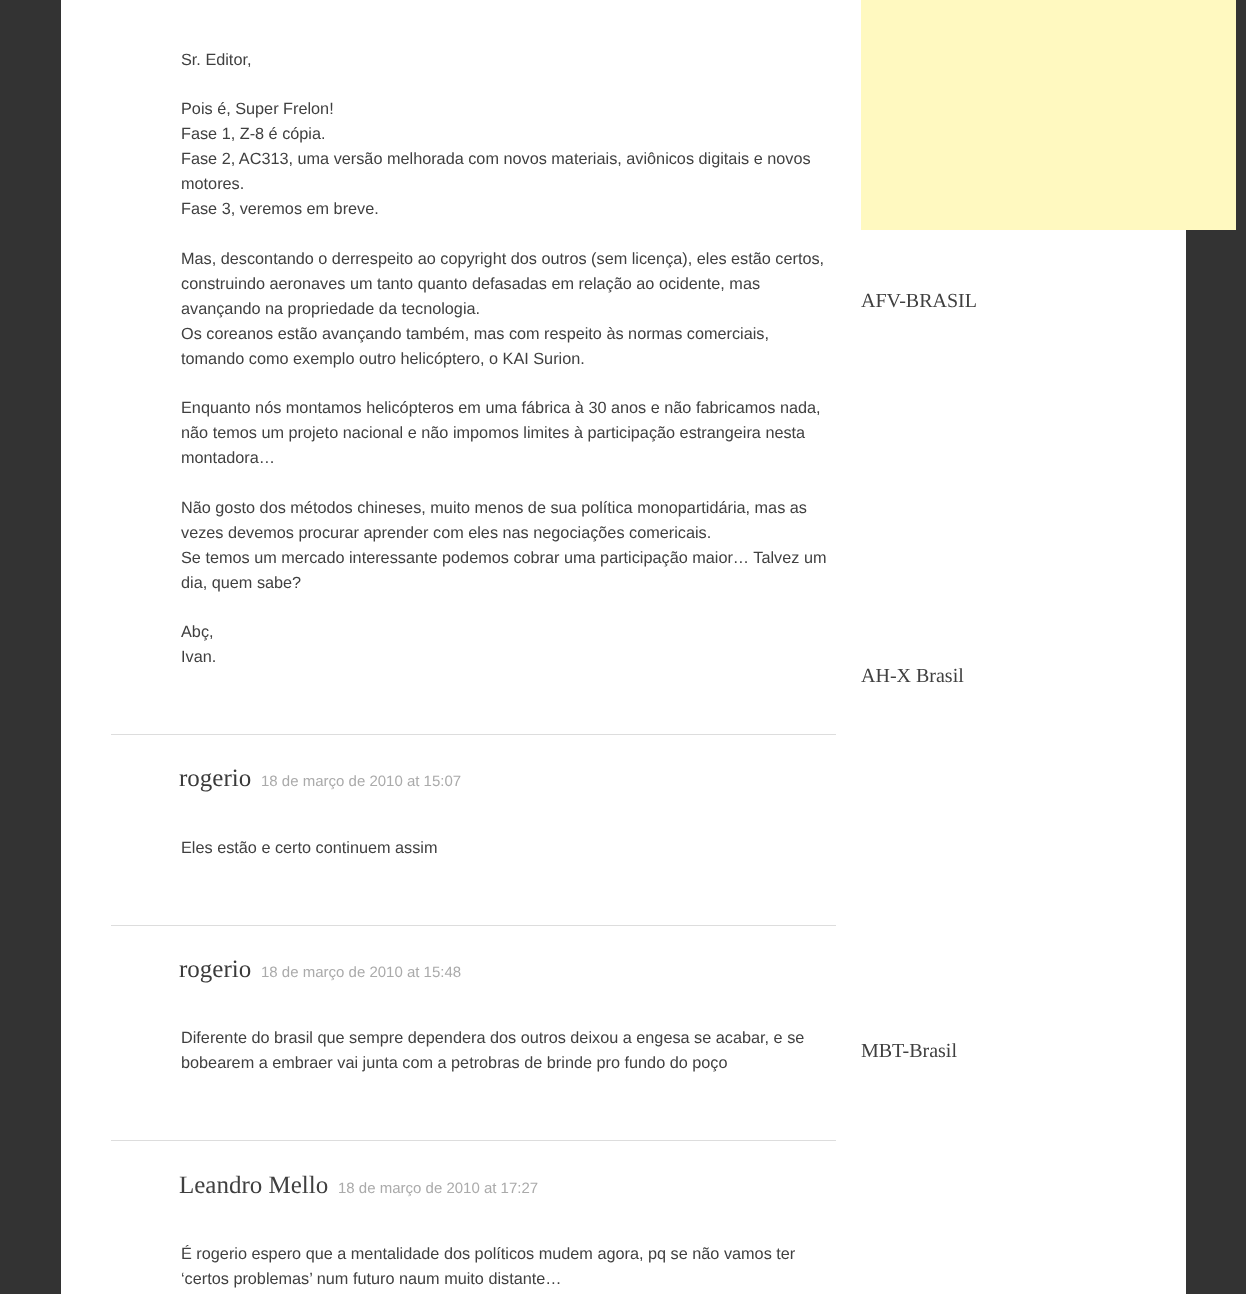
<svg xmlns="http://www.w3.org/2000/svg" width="1246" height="1294">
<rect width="100%" height="100%" fill="#333"/>
<rect x="61" width="1125" height="1294" fill="#fff"/>
<text x="181" y="65" style="font-family:Liberation Sans;font-size:16.25px;fill:#404040">Sr. Editor,</text>
<text x="181" y="114" style="font-family:Liberation Sans;font-size:16.25px;fill:#404040">Pois é, Super Frelon!</text>
<text x="181" y="139" style="font-family:Liberation Sans;font-size:16.25px;fill:#404040">Fase 1, Z-8 é cópia.</text>
<text x="181" y="164" style="font-family:Liberation Sans;font-size:16.25px;fill:#404040">Fase 2, AC313, uma versão melhorada com novos materiais, aviônicos digitais e novos</text>
<text x="181" y="189" style="font-family:Liberation Sans;font-size:16.25px;fill:#404040">motores.</text>
<text x="181" y="214" style="font-family:Liberation Sans;font-size:16.25px;fill:#404040">Fase 3, veremos em breve.</text>
<text x="181" y="264" style="font-family:Liberation Sans;font-size:16.25px;fill:#404040">Mas, descontando o derrespeito ao copyright dos outros (sem licença), eles estão certos,</text>
<text x="181" y="289" style="font-family:Liberation Sans;font-size:16.25px;fill:#404040">construindo aeronaves um tanto quanto defasadas em relação ao ocidente, mas</text>
<text x="181" y="314" style="font-family:Liberation Sans;font-size:16.25px;fill:#404040">avançando na propriedade da tecnologia.</text>
<text x="181" y="339" style="font-family:Liberation Sans;font-size:16.25px;fill:#404040">Os coreanos estão avançando também, mas com respeito às normas comerciais,</text>
<text x="181" y="364" style="font-family:Liberation Sans;font-size:16.25px;fill:#404040">tomando como exemplo outro helicóptero, o KAI Surion.</text>
<text x="181" y="413" style="font-family:Liberation Sans;font-size:16.25px;fill:#404040">Enquanto nós montamos helicópteros em uma fábrica à 30 anos e não fabricamos nada,</text>
<text x="181" y="438" style="font-family:Liberation Sans;font-size:16.25px;fill:#404040">não temos um projeto nacional e não impomos limites à participação estrangeira nesta</text>
<text x="181" y="463" style="font-family:Liberation Sans;font-size:16.25px;fill:#404040">montadora…</text>
<text x="181" y="513" style="font-family:Liberation Sans;font-size:16.25px;fill:#404040">Não gosto dos métodos chineses, muito menos de sua política monopartidária, mas as</text>
<text x="181" y="538" style="font-family:Liberation Sans;font-size:16.25px;fill:#404040">vezes devemos procurar aprender com eles nas negociações comericais.</text>
<text x="181" y="563" style="font-family:Liberation Sans;font-size:16.25px;fill:#404040">Se temos um mercado interessante podemos cobrar uma participação maior… Talvez um</text>
<text x="181" y="588" style="font-family:Liberation Sans;font-size:16.25px;fill:#404040">dia, quem sabe?</text>
<text x="181" y="637" style="font-family:Liberation Sans;font-size:16.25px;fill:#404040">Abç,</text>
<text x="181" y="662" style="font-family:Liberation Sans;font-size:16.25px;fill:#404040">Ivan.</text>
<rect x="111" y="734" width="725" height="1" fill="#ddd"/>
<text x="179" y="786" style="font-family:Liberation Serif;font-size:25px;fill:#3a3a3a">rogerio</text>
<text x="261" y="786" style="font-family:Liberation Sans;font-size:15px;fill:#aaa">18 de março de 2010 at 15:07</text>
<text x="181" y="853" style="font-family:Liberation Sans;font-size:16.25px;fill:#404040">Eles estão e certo continuem assim</text>
<rect x="111" y="925" width="725" height="1" fill="#ddd"/>
<text x="179" y="977" style="font-family:Liberation Serif;font-size:25px;fill:#3a3a3a">rogerio</text>
<text x="261" y="977" style="font-family:Liberation Sans;font-size:15px;fill:#aaa">18 de março de 2010 at 15:48</text>
<text x="181" y="1043" style="font-family:Liberation Sans;font-size:16.25px;fill:#404040">Diferente do brasil que sempre dependera dos outros deixou a engesa se acabar, e se</text>
<text x="181" y="1068" style="font-family:Liberation Sans;font-size:16.25px;fill:#404040">bobearem a embraer vai junta com a petrobras de brinde pro fundo do poço</text>
<rect x="111" y="1140" width="725" height="1" fill="#ddd"/>
<text x="179" y="1193" style="font-family:Liberation Serif;font-size:25px;fill:#404040">Leandro Mello</text>
<text x="338" y="1193" style="font-family:Liberation Sans;font-size:15px;fill:#aaa">18 de março de 2010 at 17:27</text>
<text x="181" y="1259" style="font-family:Liberation Sans;font-size:16.25px;fill:#404040">É rogerio espero que a mentalidade dos políticos mudem agora, pq se não vamos ter</text>
<text x="181" y="1284" style="font-family:Liberation Sans;font-size:16.25px;fill:#404040">‘certos problemas’ num futuro naum muito distante…</text>
<rect x="861" width="375" height="230" fill="#fff9c0"/>
<text x="861" y="307" style="font-family:Liberation Serif;font-size:20px;fill:#404040">AFV-BRASIL</text>
<text x="861" y="682" style="font-family:Liberation Serif;font-size:20px;fill:#404040">AH-X Brasil</text>
<text x="861" y="1057" style="font-family:Liberation Serif;font-size:20px;fill:#404040">MBT-Brasil</text>
</svg>
